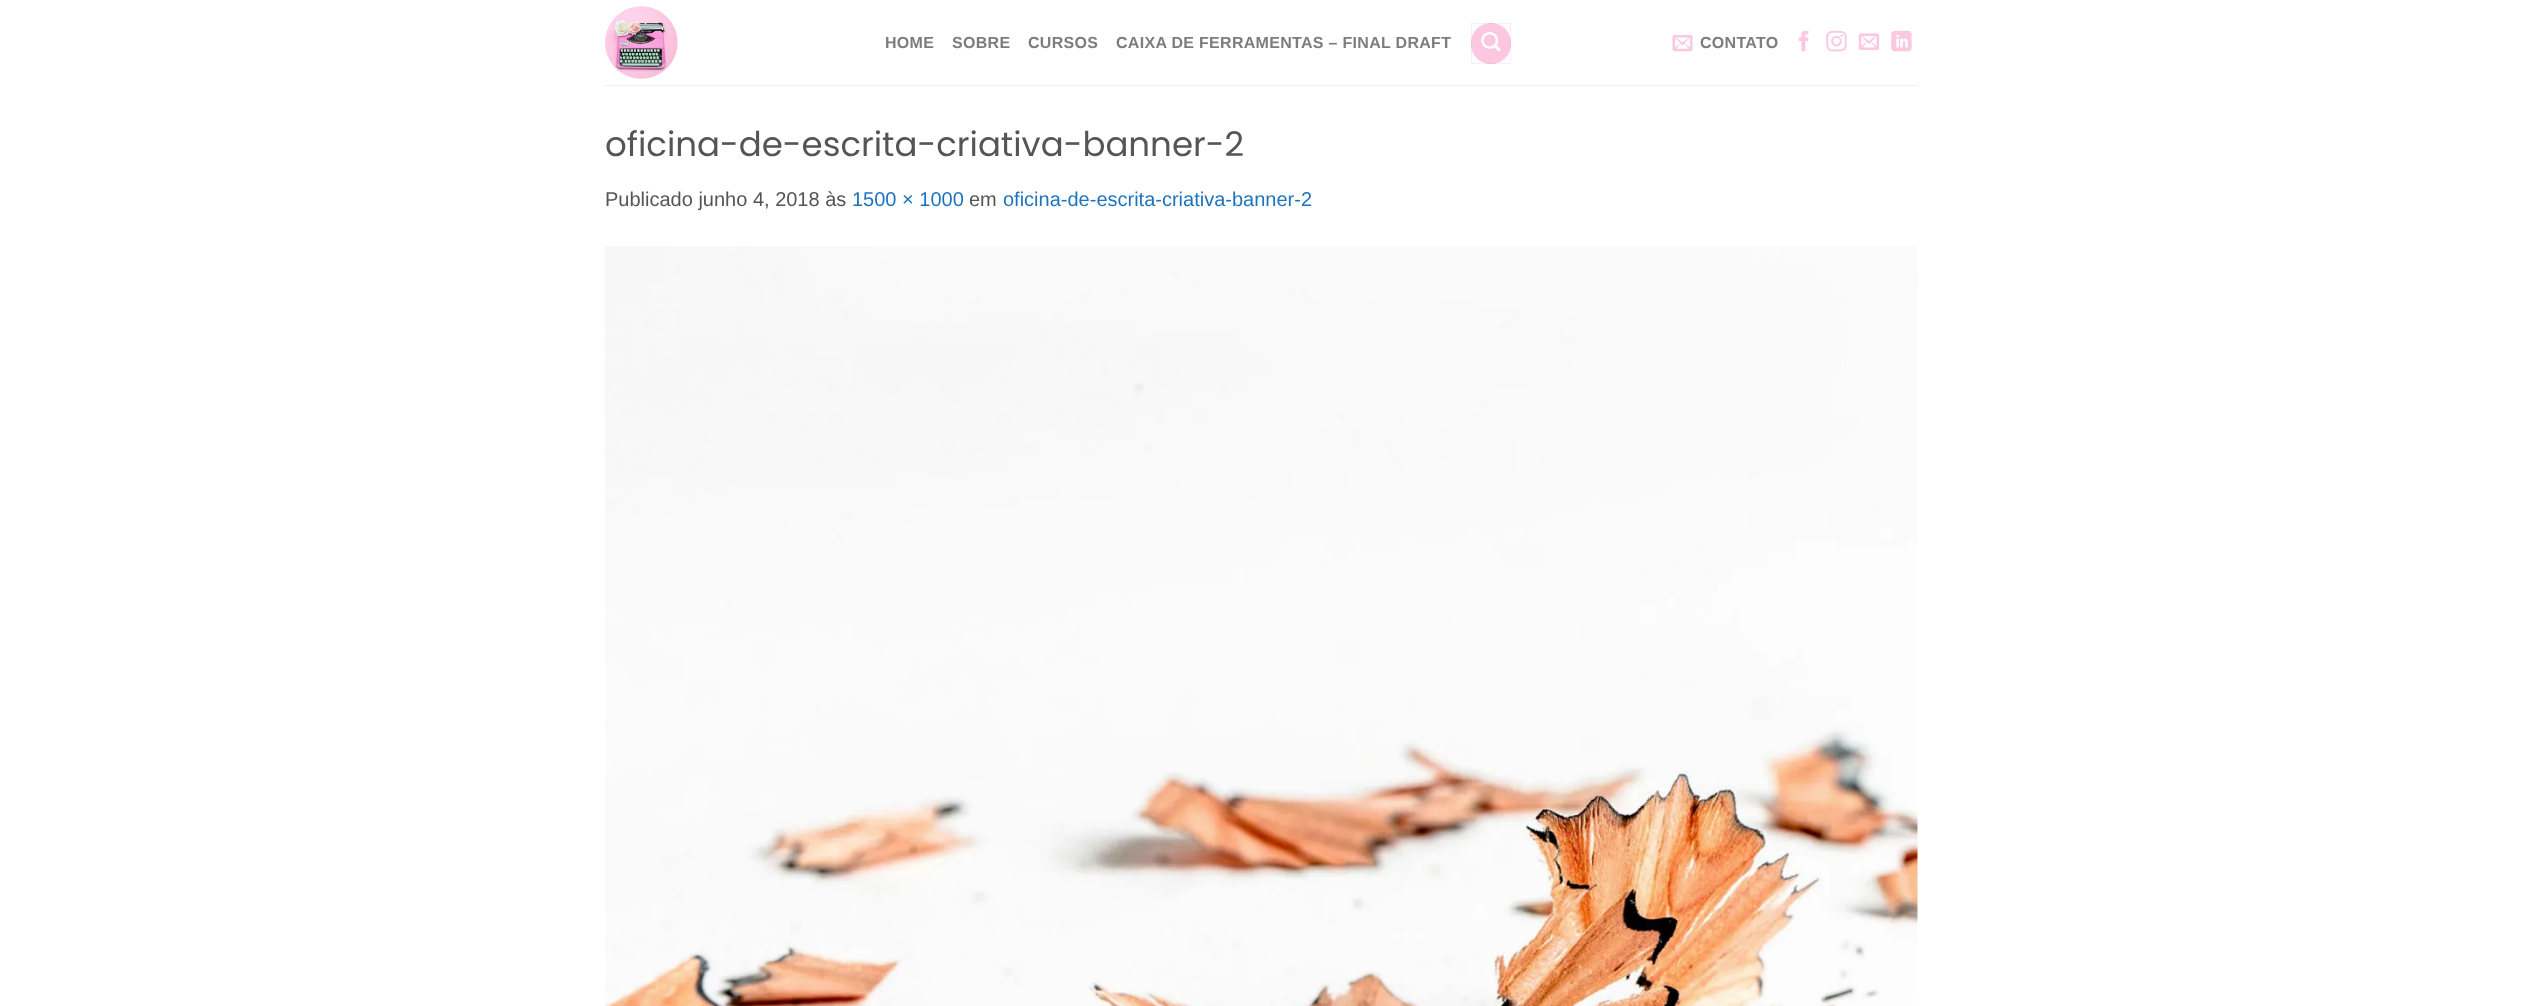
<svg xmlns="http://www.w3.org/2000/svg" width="2522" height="1006">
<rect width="100%" height="100%" fill="#fff"/>
<image x="605" y="6" width="73" height="73" href="media/1.png"/>
<text x="885" y="48" style="font-family:Liberation Sans;font-size:16px;font-weight:bold;letter-spacing:0.3px;fill:#7d7d7d">HOME</text>
<text x="952" y="48" style="font-family:Liberation Sans;font-size:16px;font-weight:bold;letter-spacing:0.3px;fill:#7d7d7d">SOBRE</text>
<text x="1028" y="48" style="font-family:Liberation Sans;font-size:16px;font-weight:bold;letter-spacing:0.3px;fill:#7d7d7d">CURSOS</text>
<text x="1116" y="48" style="font-family:Liberation Sans;font-size:16px;font-weight:bold;letter-spacing:0.3px;fill:#7d7d7d">CAIXA DE FERRAMENTAS – FINAL DRAFT</text>
<rect x="1471" y="23" width="40" height="41" rx="20" fill="#fbc7e1"/>
<rect x="1471.5" y="23.5" width="39" height="40" fill="none" stroke="#0000000d"/>
<image x="1481" y="32" width="20" height="20" href="media/2.png"/>
<image x="1672" y="35" width="21" height="17" href="media/3.png"/>
<text x="1700" y="48" style="font-family:Liberation Sans;font-size:16px;font-weight:bold;letter-spacing:0.3px;fill:#7d7d7d">CONTATO</text>
<image x="1798" y="30" width="11" height="22" href="media/4.png"/>
<image x="1826" y="30" width="21" height="22" href="media/5.png"/>
<image x="1858" y="33" width="22" height="17" href="media/6.png"/>
<image x="1891" y="30" width="21" height="22" href="media/7.png"/>
<rect x="605" y="85" width="1313" height="1" fill="#eee"/>
<text x="605" y="156" style="font-family:Poppins;font-size:34px;fill:#555">oficina-de-escrita-criativa-banner-2</text>
<text x="605" y="206" style="font-family:Liberation Sans;font-size:20px;fill:#555">Publicado junho 4, 2018 às</text>
<text x="852" y="206" style="font-family:Liberation Sans;font-size:20px;fill:#1e73be">1500 × 1000</text>
<text x="969" y="206" style="font-family:Liberation Sans;font-size:20px;fill:#555">em</text>
<text x="1003" y="206" style="font-family:Liberation Sans;font-size:20px;fill:#1e73be">oficina-de-escrita-criativa-banner-2</text>
<image x="605" y="246" width="1313" height="760" href="media/8.png"/>
</svg>
